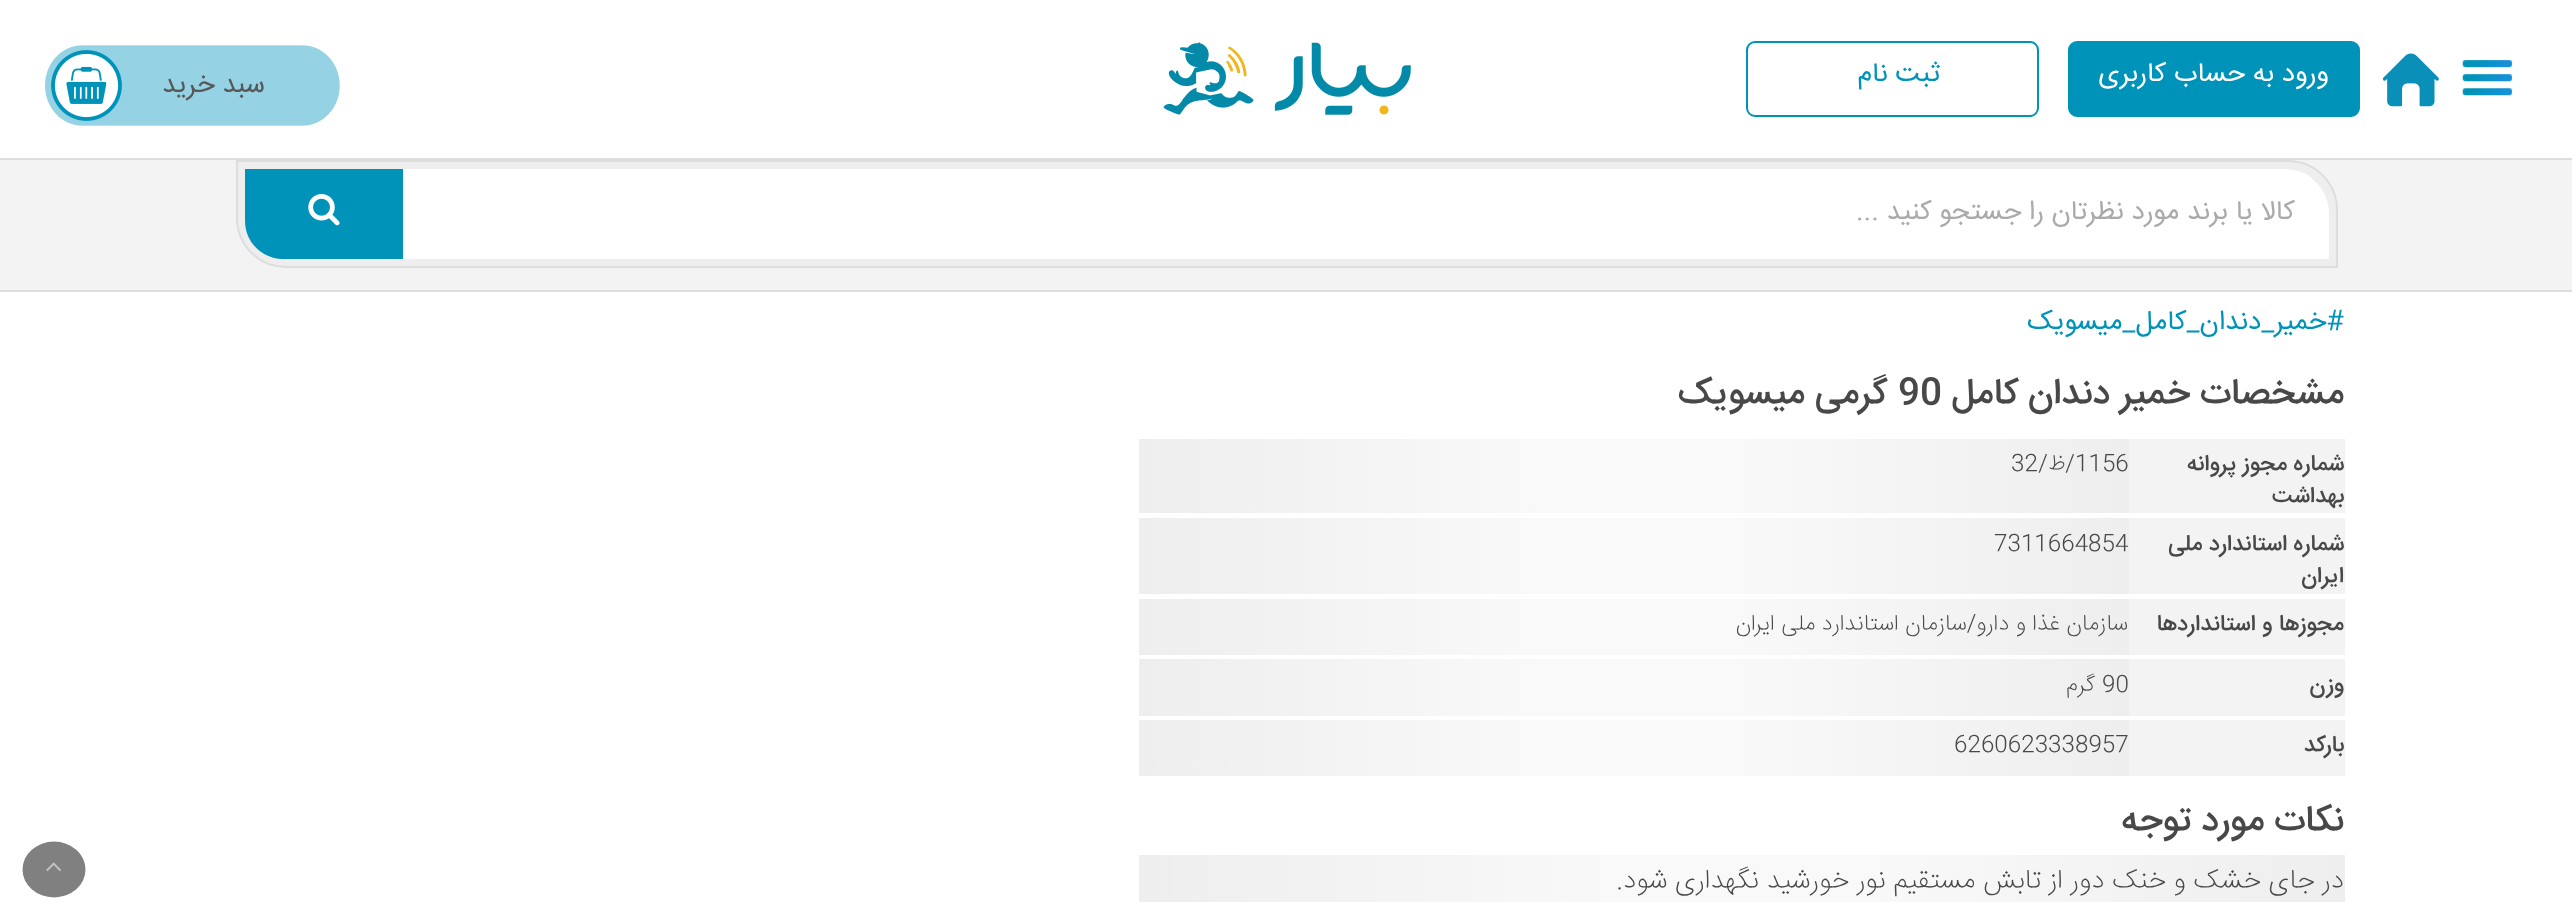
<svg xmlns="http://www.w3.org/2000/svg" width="2572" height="902">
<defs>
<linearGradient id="g1" gradientUnits="userSpaceOnUse" x1="2129" y1="476" x2="1139" y2="476"><stop offset="0" stop-color="#eee"/><stop offset="0.4" stop-color="#f9f9f9"/><stop offset="0.6" stop-color="#f9f9f9"/><stop offset="1" stop-color="#eee"/></linearGradient>
<linearGradient id="g2" gradientUnits="userSpaceOnUse" x1="2129" y1="556" x2="1139" y2="556"><stop offset="0" stop-color="#eee"/><stop offset="0.4" stop-color="#f9f9f9"/><stop offset="0.6" stop-color="#f9f9f9"/><stop offset="1" stop-color="#eee"/></linearGradient>
<linearGradient id="g3" gradientUnits="userSpaceOnUse" x1="2129" y1="627" x2="1139" y2="627"><stop offset="0" stop-color="#eee"/><stop offset="0.4" stop-color="#f9f9f9"/><stop offset="0.6" stop-color="#f9f9f9"/><stop offset="1" stop-color="#eee"/></linearGradient>
<linearGradient id="g4" gradientUnits="userSpaceOnUse" x1="2129" y1="687" x2="1139" y2="687"><stop offset="0" stop-color="#eee"/><stop offset="0.4" stop-color="#f9f9f9"/><stop offset="0.6" stop-color="#f9f9f9"/><stop offset="1" stop-color="#eee"/></linearGradient>
<linearGradient id="g5" gradientUnits="userSpaceOnUse" x1="2129" y1="748" x2="1139" y2="748"><stop offset="0" stop-color="#eee"/><stop offset="0.4" stop-color="#f9f9f9"/><stop offset="0.6" stop-color="#f9f9f9"/><stop offset="1" stop-color="#eee"/></linearGradient>
<linearGradient id="g6" gradientUnits="userSpaceOnUse" x1="2345" y1="883" x2="1139" y2="883"><stop offset="0" stop-color="#eee"/><stop offset="0.4" stop-color="#f9f9f9"/><stop offset="0.6" stop-color="#f9f9f9"/><stop offset="1" stop-color="#eee"/></linearGradient>
</defs>
<rect width="100%" height="100%" fill="#fff"/>
<rect y="290" width="2572" height="2" fill="#ddd"/>
<image x="2462" y="60" width="51" height="36" href="media/1.png"/>
<image x="2383" y="53" width="56" height="54" href="media/2.png"/>
<rect x="2069" y="42" width="290" height="74" rx="8" fill="#0093ba" stroke="#0093ba" stroke-width="2"/>
<text x="2329" y="81" style="font-family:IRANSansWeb;font-size:27px;direction:rtl;fill:#fff">ورود به حساب کاربری</text>
<rect x="1747" y="42" width="291" height="74" rx="8" fill="none" stroke="#0093ba" stroke-width="2"/>
<text x="1940" y="81" style="font-family:IRANSansWeb;font-size:27px;direction:rtl;fill:#0093ba">ثبت نام</text>
<image x="1163" y="42" width="248" height="73" href="media/3.png"/>
<image x="45" y="45" width="295" height="81" href="media/4.png"/>
<text x="265" y="92" style="font-family:IRANSansWeb;font-size:27px;direction:rtl;fill:#585858">سبد خرید</text>
<rect y="158" width="2572" height="2" fill="#ddd"/>
<rect y="160" width="2572" height="130" fill="#f3f3f3"/>
<path d="M237 161h2051c27 0 49 22 49 49v57h-2051c-27 0-49-22-49-49z" fill="#eee" stroke="#ddd" stroke-width="2"/>
<path d="M403 169h1881c25 0 45 20 45 45v45h-1926z" fill="#fff"/>
<rect x="468" y="171" width="1850" height="86" rx="23" fill="#fff"/>
<text x="2295" y="219" style="font-family:IRANSansWeb;font-size:27px;direction:rtl;fill:#aaa">کالا یا برند مورد نظرتان را جستجو کنید ...</text>
<path d="M245 169h158v90h-120c-21 0-38-17-38-38z" fill="#0093ba"/>
<image x="308" y="194" width="32" height="32" href="media/5.png"/>
<text x="2344" y="329" style="font-family:IRANSansWeb;font-size:27px;direction:rtl;fill:#0093ba">#خمیر_دندان_کامل_میسویک</text>
<text x="2344" y="403" style="font-family:IRANSansWeb;font-size:36px;font-weight:500;direction:rtl;fill:#484848">مشخصات</text>
<text x="2190" y="403" style="font-family:IRANSansWeb;font-size:36px;font-weight:500;direction:rtl;fill:#484848">خمیر دندان کامل</text>
<text x="1898" y="403" style="font-family:IRANSansWeb;font-size:36px;font-weight:500;fill:#484848">90</text>
<text x="1888" y="403" style="font-family:IRANSansWeb;font-size:36px;font-weight:500;direction:rtl;fill:#484848">گرمی میسویک</text>
<rect x="2129" y="439" width="216" height="74" fill="#f3f3f3"/>
<text x="2344" y="470" style="font-family:IRANSansWeb;font-size:22.5px;font-weight:500;direction:rtl;fill:#484848">شماره مجوز پروانه</text>
<text x="2344" y="502" style="font-family:IRANSansWeb;font-size:22.5px;font-weight:500;direction:rtl;fill:#484848">بهداشت</text>
<rect x="1139" y="439" width="990" height="74" fill="url(#g1)"/>
<text x="2075" y="470" style="font-family:IRANSansWeb;font-size:22.5px;font-weight:200;fill:#484848">1156</text>
<text x="2075" y="470" style="font-family:IRANSansWeb;font-size:22.5px;font-weight:200;direction:rtl;fill:#484848">/ظ/</text>
<text x="2011" y="470" style="font-family:IRANSansWeb;font-size:22.5px;font-weight:200;fill:#484848">32</text>
<rect x="2129" y="518" width="216" height="76" fill="#f3f3f3"/>
<text x="2344" y="550" style="font-family:IRANSansWeb;font-size:22.5px;font-weight:500;direction:rtl;fill:#484848">شماره استاندارد ملی</text>
<text x="2344" y="582" style="font-family:IRANSansWeb;font-size:22.5px;font-weight:500;direction:rtl;fill:#484848">ایران</text>
<rect x="1139" y="518" width="990" height="76" fill="url(#g2)"/>
<text x="1994" y="550" style="font-family:IRANSansWeb;font-size:22.5px;font-weight:200;fill:#484848">7311664854</text>
<rect x="2129" y="599" width="216" height="56" fill="#f3f3f3"/>
<text x="2344" y="630" style="font-family:IRANSansWeb;font-size:22.5px;font-weight:500;direction:rtl;fill:#484848">مجوزها و استانداردها</text>
<rect x="1139" y="599" width="990" height="56" fill="url(#g3)"/>
<text x="2128" y="630" style="font-family:IRANSansWeb;font-size:22.5px;font-weight:200;direction:rtl;fill:#484848">سازمان غذا و دارو/سازمان استاندارد ملی ایران</text>
<rect x="2129" y="659" width="216" height="57" fill="#f3f3f3"/>
<text x="2344" y="691" style="font-family:IRANSansWeb;font-size:22.5px;font-weight:500;direction:rtl;fill:#484848">وزن</text>
<rect x="1139" y="659" width="990" height="57" fill="url(#g4)"/>
<text x="2102" y="691" style="font-family:IRANSansWeb;font-size:22.5px;font-weight:200;fill:#484848">90</text>
<text x="2095" y="691" style="font-family:IRANSansWeb;font-size:22.5px;font-weight:200;direction:rtl;fill:#484848">گرم</text>
<rect x="2129" y="720" width="216" height="56" fill="#f3f3f3"/>
<text x="2344" y="751" style="font-family:IRANSansWeb;font-size:22.5px;font-weight:500;direction:rtl;fill:#484848">بارکد</text>
<rect x="1139" y="720" width="990" height="56" fill="url(#g5)"/>
<text x="1954" y="751" style="font-family:IRANSansWeb;font-size:22.5px;font-weight:200;fill:#484848">6260623338957</text>
<text x="2344" y="830" style="font-family:IRANSansWeb;font-size:36px;font-weight:500;direction:rtl;fill:#484848">نکات مورد توجه</text>
<rect x="1139" y="855" width="1206" height="47" fill="url(#g6)"/>
<text x="2344" y="888" style="font-family:IRANSansWeb;font-size:27px;font-weight:200;direction:rtl;fill:#484848">در جای خشک و خنک دور از تابش مستقیم نور خورشید نگهداری شود.</text>
<ellipse cx="54" cy="869.5" rx="31.5" ry="28" fill="#808080"/>
<image x="46" y="862" width="15" height="10" href="media/6.png"/>
</svg>
